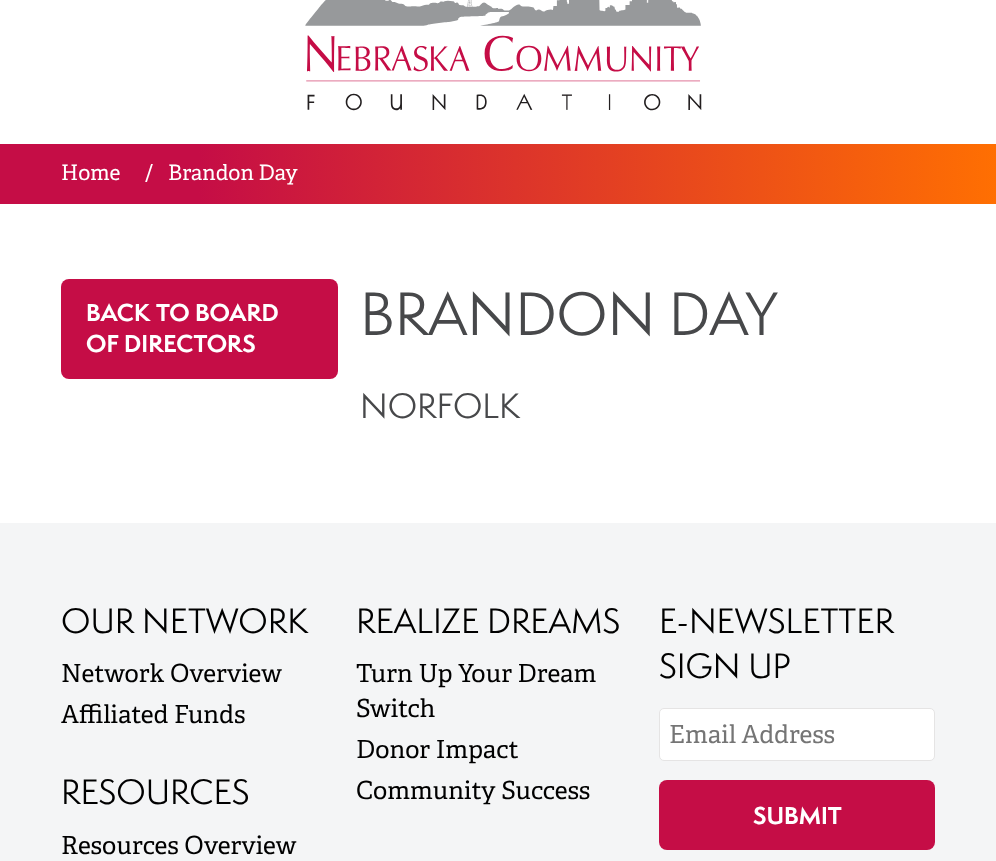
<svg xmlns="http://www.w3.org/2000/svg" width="996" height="861">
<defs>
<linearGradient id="g1" gradientUnits="userSpaceOnUse" x1="0" y1="174" x2="996" y2="174"><stop offset="0.2" stop-color="#c50d46"/><stop offset="1" stop-color="#ff6f02"/></linearGradient>
</defs>
<rect width="100%" height="100%" fill="#fff"/>
<image x="305" y="0" width="397" height="111" href="media/1.png"/>
<rect y="144" width="996" height="60" fill="url(#g1)"/>
<text x="61" y="180" style="font-family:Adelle;font-size:21.25px;fill:#fff">Home</text>
<text x="145" y="180" style="font-family:Adelle;font-size:21.25px;fill:#fff">/</text>
<text x="168" y="180" style="font-family:Adelle;font-size:21.25px;fill:#fff">Brandon Day</text>
<rect x="61" y="279" width="277" height="100" rx="8" fill="#c50d46"/>
<text x="86" y="321" style="font-family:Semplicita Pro;font-size:22.5px;font-weight:bold;fill:#fff">BACK TO BOARD</text>
<text x="86" y="352" style="font-family:Semplicita Pro;font-size:22.5px;font-weight:bold;fill:#fff">OF DIRECTORS</text>
<text x="360" y="335" style="font-family:Semplicita Pro;font-size:56.25px;fill:#47484a">BRANDON DAY</text>
<text x="360" y="418" style="font-family:Semplicita Pro;font-size:32.5px;fill:#47484a">NORFOLK</text>
<rect y="523" width="996" height="338" fill="#f4f5f6"/>
<text x="61" y="633" style="font-family:Semplicita Pro;font-size:32.5px;fill:#000">OUR NETWORK</text>
<text x="61" y="682" style="font-family:Adelle;font-size:25px;fill:#000">Network Overview</text>
<text x="61" y="723" style="font-family:Adelle;font-size:25px;fill:#000">Affiliated Funds</text>
<text x="61" y="804" style="font-family:Semplicita Pro;font-size:32.5px;fill:#000">RESOURCES</text>
<text x="61" y="854" style="font-family:Adelle;font-size:25px;fill:#000">Resources Overview</text>
<text x="356" y="633" style="font-family:Semplicita Pro;font-size:32.5px;fill:#000">REALIZE DREAMS</text>
<text x="356" y="682" style="font-family:Adelle;font-size:25px;fill:#000">Turn Up Your Dream</text>
<text x="356" y="717" style="font-family:Adelle;font-size:25px;fill:#000">Switch</text>
<text x="356" y="758" style="font-family:Adelle;font-size:25px;fill:#000">Donor Impact</text>
<text x="356" y="799" style="font-family:Adelle;font-size:25px;fill:#000">Community Success</text>
<text x="659" y="633" style="font-family:Semplicita Pro;font-size:32.5px;fill:#000">E-NEWSLETTER</text>
<text x="659" y="678" style="font-family:Semplicita Pro;font-size:32.5px;fill:#000">SIGN UP</text>
<rect x="659.5" y="708.5" width="275" height="52" rx="4.5" fill="#fff" stroke="#e5e4e4"/>
<text x="669" y="743" style="font-family:Adelle;font-size:25px;fill:#757575">Email Address</text>
<rect x="659" y="780" width="276" height="70" rx="8" fill="#c50d46"/>
<text x="753" y="824" style="font-family:Semplicita Pro;font-size:22.5px;font-weight:bold;fill:#fff">SUBMIT</text>
</svg>
